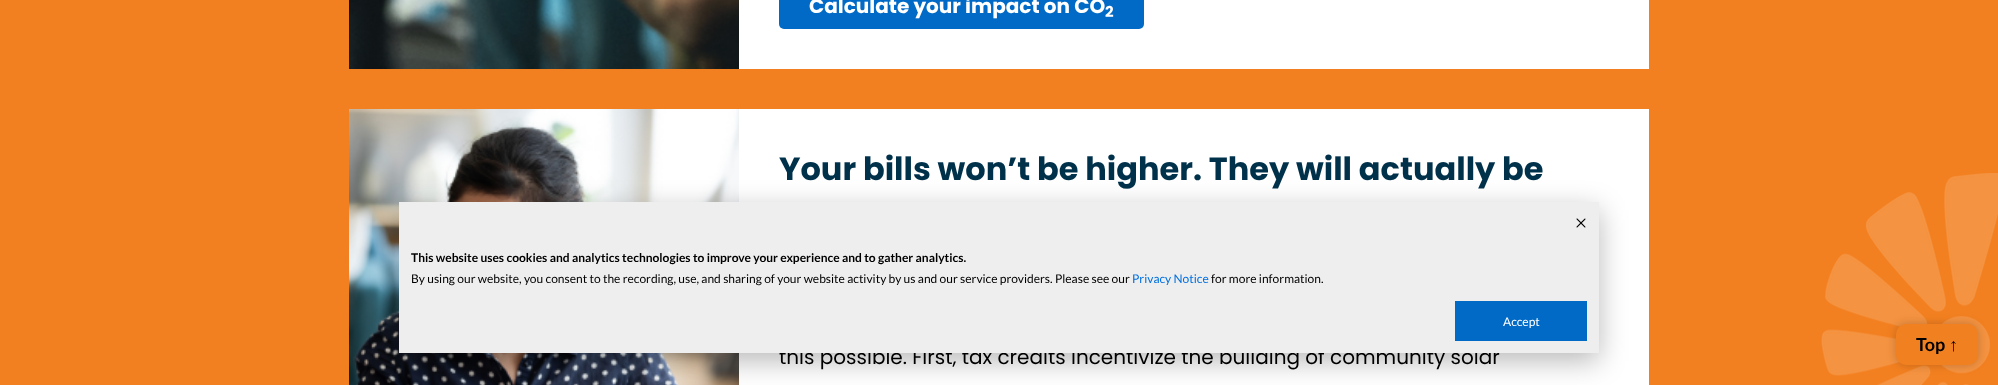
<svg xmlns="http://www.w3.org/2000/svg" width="1998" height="385">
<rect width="100%" height="100%" fill="#f38020"/>
<image x="1821" y="173" width="177" height="212" href="media/1.png"/>
<rect x="739" width="910" height="69" fill="#fff"/>
<image x="349" y="0" width="390" height="69" href="media/2.png"/>
<rect x="779" y="-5" width="365" height="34" rx="5" fill="#006ac6"/>
<text x="809" y="13" style="font-family:Poppins;font-size:20px;font-weight:bold;fill:#fff">Calculate your impact on CO</text>
<text x="1105" y="17" style="font-family:Poppins;font-size:15px;font-weight:bold;fill:#fff">2</text>
<rect x="739" y="109" width="910" height="276" fill="#fff"/>
<image x="349" y="109" width="390" height="276" href="media/3.png"/>
<text x="779" y="180" style="font-family:Poppins;font-size:32px;font-weight:bold;fill:#00314b">Your bills won’t be higher. They will actually be</text>
<text x="779" y="364" style="font-family:Poppins;font-size:20px;fill:#000">this possible. First, tax credits incentivize the building of community solar</text>
<rect x="1896" y="324" width="82" height="41" rx="10" fill="#00000033" filter="blur(5px)"/>
<rect x="1896" y="324" width="82" height="41" rx="10" fill="#f18020"/>
<text x="1916" y="351" style="font-family:Lato;font-size:18px;font-weight:bold;fill:#000">Top</text>
<text x="1949" y="351" style="font-family:Liberation Sans;font-size:18px;font-weight:bold;fill:#000">↑</text>
<rect x="399" y="210" width="1200" height="151" fill="#00000047" filter="blur(14px)"/>
<rect x="399" y="202" width="1200" height="151" fill="#eee"/>
<image x="1576" y="218" width="10" height="10" href="media/4.png"/>
<text x="411" y="262" style="font-family:Lato;font-size:12px;font-weight:bold;fill:#000">This website uses cookies and analytics technologies to improve your experience and to gather analytics.</text>
<text x="411" y="283" style="font-family:Lato;font-size:12px;fill:#000">By using our website, you consent to the recording, use, and sharing of your website activity by us and our service providers. Please see our</text>
<text x="1132" y="283" style="font-family:Lato;font-size:12px;fill:#0270e0">Privacy Notice</text>
<text x="1211" y="283" style="font-family:Lato;font-size:12px;fill:#000">for more information.</text>
<rect x="1455" y="301" width="132" height="40" fill="#006ac6"/>
<text x="1503" y="326" style="font-family:Lato;font-size:12px;fill:#fff">Accept</text>
</svg>
